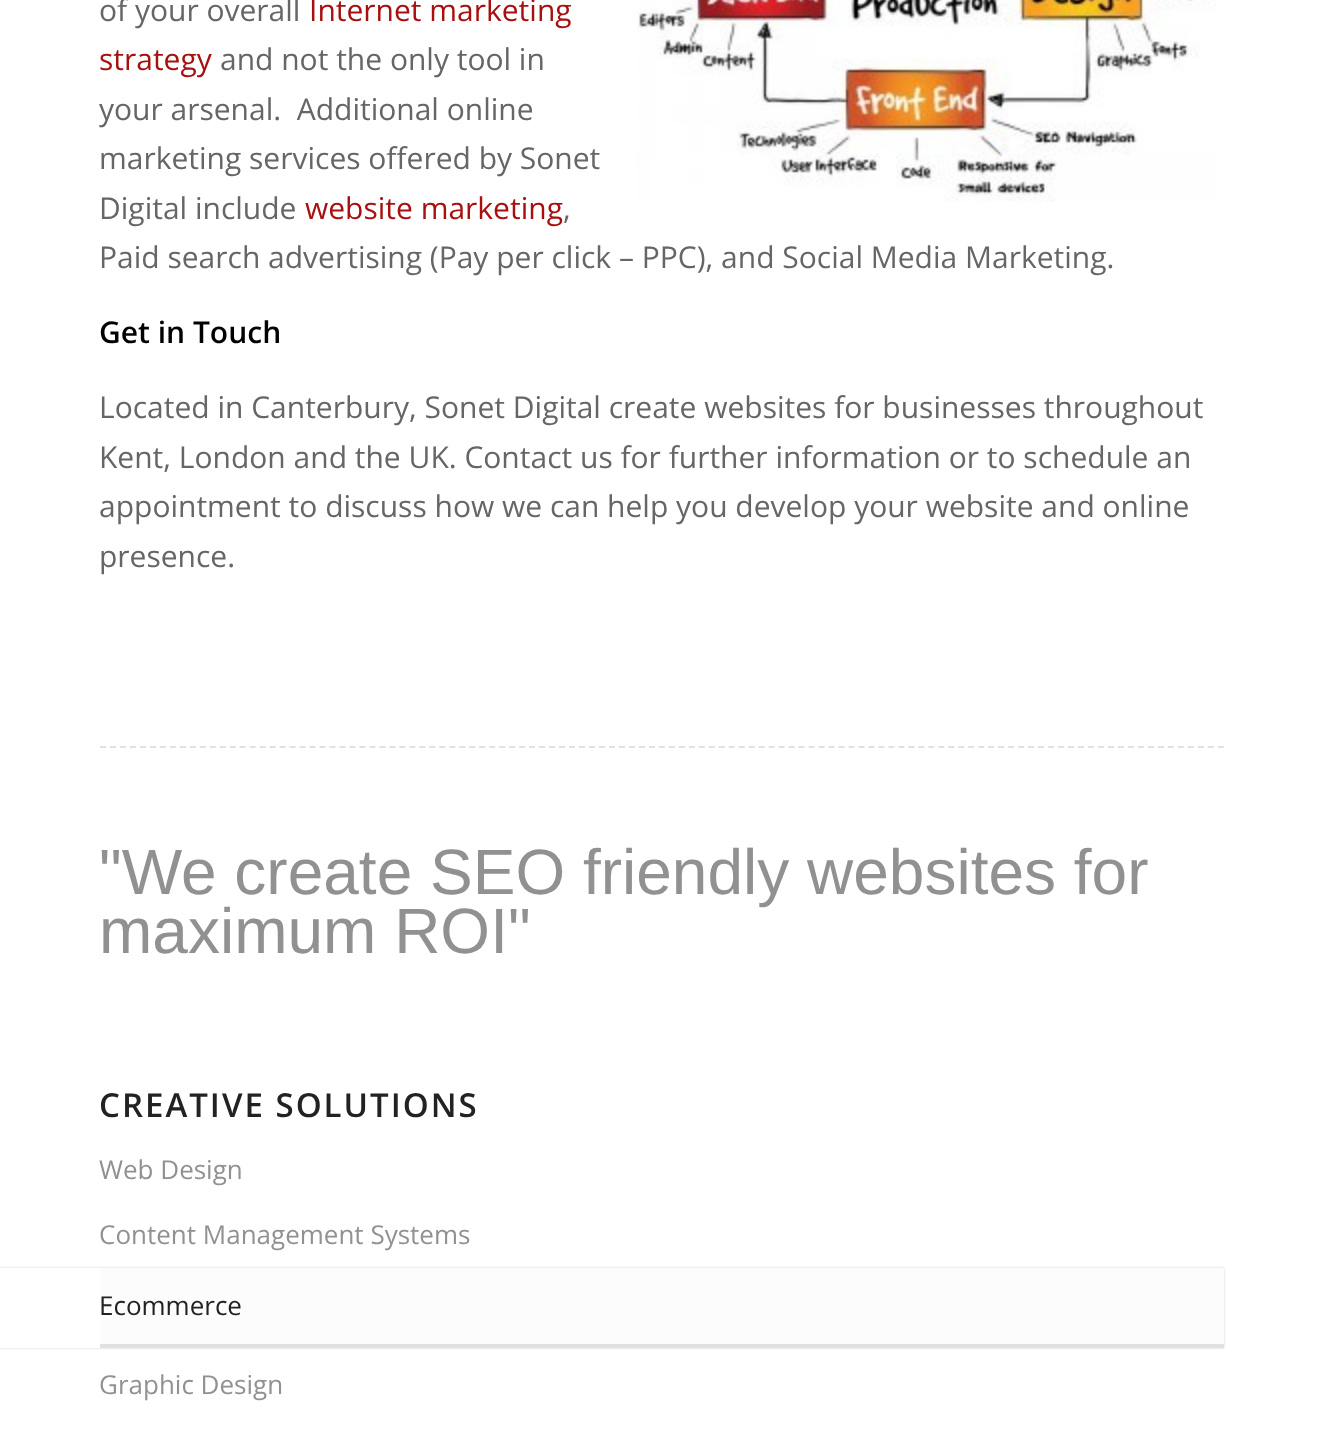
<svg xmlns="http://www.w3.org/2000/svg" width="1324" height="1444">
<defs>
<clipPath id="clip1"><path d="M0 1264h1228v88h-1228zm-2 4h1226v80h-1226z" clip-rule="evenodd"/></clipPath>
</defs>
<rect width="100%" height="100%" fill="#fff"/>
<text x="99" y="21" style="font-family:Open Sans;font-size:30px;fill:#666">of your overall</text>
<text x="309" y="21" style="font-family:Open Sans;font-size:30px;fill:#a81010">Internet marketing</text>
<text x="99" y="70" style="font-family:Open Sans;font-size:30px;fill:#a81010">strategy</text>
<text x="220" y="70" style="font-family:Open Sans;font-size:30px;fill:#666">and not the only tool in</text>
<text x="99" y="120" style="font-family:Open Sans;font-size:30px;fill:#666" xml:space="preserve">your arsenal.  Additional online</text>
<text x="99" y="169" style="font-family:Open Sans;font-size:30px;fill:#666">marketing services offered by Sonet</text>
<text x="99" y="219" style="font-family:Open Sans;font-size:30px;fill:#666">Digital include</text>
<text x="305" y="219" style="font-family:Open Sans;font-size:30px;fill:#a81010">website marketing</text>
<text x="563" y="219" style="font-family:Open Sans;font-size:30px;fill:#666">,</text>
<text x="99" y="268" style="font-family:Open Sans;font-size:30px;fill:#666">Paid search advertising (Pay per click – PPC), and Social Media Marketing.</text>
<image x="637" y="0" width="579" height="202" href="media/1.png"/>
<text x="99" y="343" style="font-family:Open Sans;font-size:30px;font-weight:600;fill:#000">Get in Touch</text>
<text x="99" y="418" style="font-family:Open Sans;font-size:30px;fill:#666">Located in Canterbury, Sonet Digital create websites for businesses throughout</text>
<text x="99" y="468" style="font-family:Open Sans;font-size:30px;fill:#666">Kent, London and the UK. Contact us for further information or to schedule an</text>
<text x="99" y="517" style="font-family:Open Sans;font-size:30px;fill:#666">appointment to discuss how we can help you develop your website and online</text>
<text x="99" y="567" style="font-family:Open Sans;font-size:30px;fill:#666">presence.</text>
<path d="M100 747h1124" fill="none" stroke="#e1e1e1" stroke-width="2" stroke-dasharray="6 3.98"/>
<text x="99" y="894" style="font-family:Liberation Sans;font-size:64px;fill:#919191">"We create SEO friendly websites for</text>
<text x="99" y="953" style="font-family:Liberation Sans;font-size:64px;fill:#919191">maximum ROI"</text>
<text x="99" y="1117" style="font-family:Open Sans;font-size:33px;font-weight:600;letter-spacing:2px;fill:#222">CREATIVE SOLUTIONS</text>
<text x="99" y="1179" style="font-family:Open Sans;font-size:26px;fill:#919191">Web Design</text>
<text x="99" y="1244" style="font-family:Open Sans;font-size:26px;fill:#919191">Content Management Systems</text>
<g clip-path="url(#clip1)">
<rect x="-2" y="1268" width="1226" height="80" fill="#00000033" filter="blur(1px)"/>
</g>
<rect x="100" y="1268" width="1124" height="76" fill="#fcfcfc"/>
<rect x="100" y="1344" width="1124" height="4" fill="#e1e1e1"/>
<text x="99" y="1315" style="font-family:Open Sans;font-size:26px;fill:#222">Ecommerce</text>
<text x="99" y="1394" style="font-family:Open Sans;font-size:26px;fill:#919191">Graphic Design</text>
</svg>
